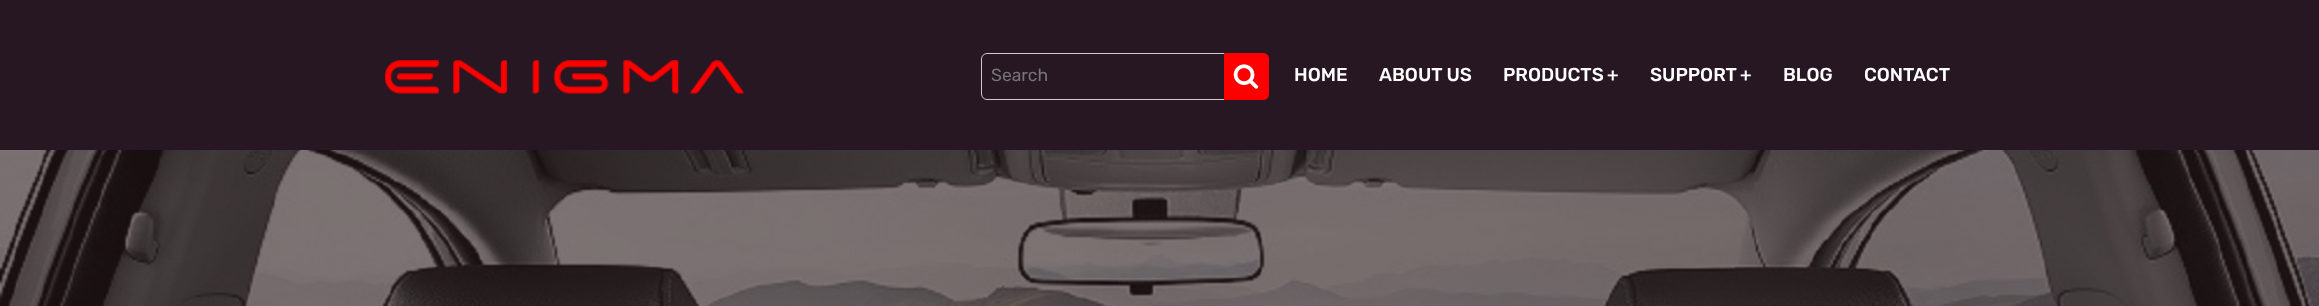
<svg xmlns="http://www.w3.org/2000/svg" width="2319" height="306">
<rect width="100%" height="100%" fill="#fff"/>
<rect width="2319" height="150" fill="#271722"/>
<image x="385" y="60" width="359" height="34" href="media/1.png"/>
<path d="M987 53.5h260.5v46h-260.5c-3 0-5.5-2.5-5.5-5.5v-35c0-3 2.5-5.5 5.5-5.5z" fill="none" stroke="#ccc"/>
<text x="991" y="81" style="font-family:Rubik;font-size:17.5px;fill:#757575">Search</text>
<path d="M1224 53h39c3.5 0 6 2.5 6 6v35c0 3.5-2.5 6-6 6h-39z" fill="#f00"/>
<image x="1233" y="64" width="26" height="25" href="media/2.png"/>
<text x="1294" y="81" style="font-family:Rubik;font-size:18.75px;font-weight:500;fill:#fff">HOME</text>
<text x="1379" y="81" style="font-family:Rubik;font-size:18.75px;font-weight:500;fill:#fff">ABOUT US</text>
<text x="1503" y="81" style="font-family:Rubik;font-size:18.75px;font-weight:500;fill:#fff">PRODUCTS</text>
<text x="1607" y="81" style="font-family:Rubik;font-size:18.75px;font-weight:500;fill:#fff">+</text>
<text x="1650" y="81" style="font-family:Rubik;font-size:18.75px;font-weight:500;fill:#fff">SUPPORT</text>
<text x="1740" y="81" style="font-family:Rubik;font-size:18.75px;font-weight:500;fill:#fff">+</text>
<text x="1783" y="81" style="font-family:Rubik;font-size:18.75px;font-weight:500;fill:#fff">BLOG</text>
<text x="1864" y="81" style="font-family:Rubik;font-size:18.75px;font-weight:500;fill:#fff">CONTACT</text>
<image x="0" y="150" width="2319" height="156" href="media/3.png"/>
</svg>
